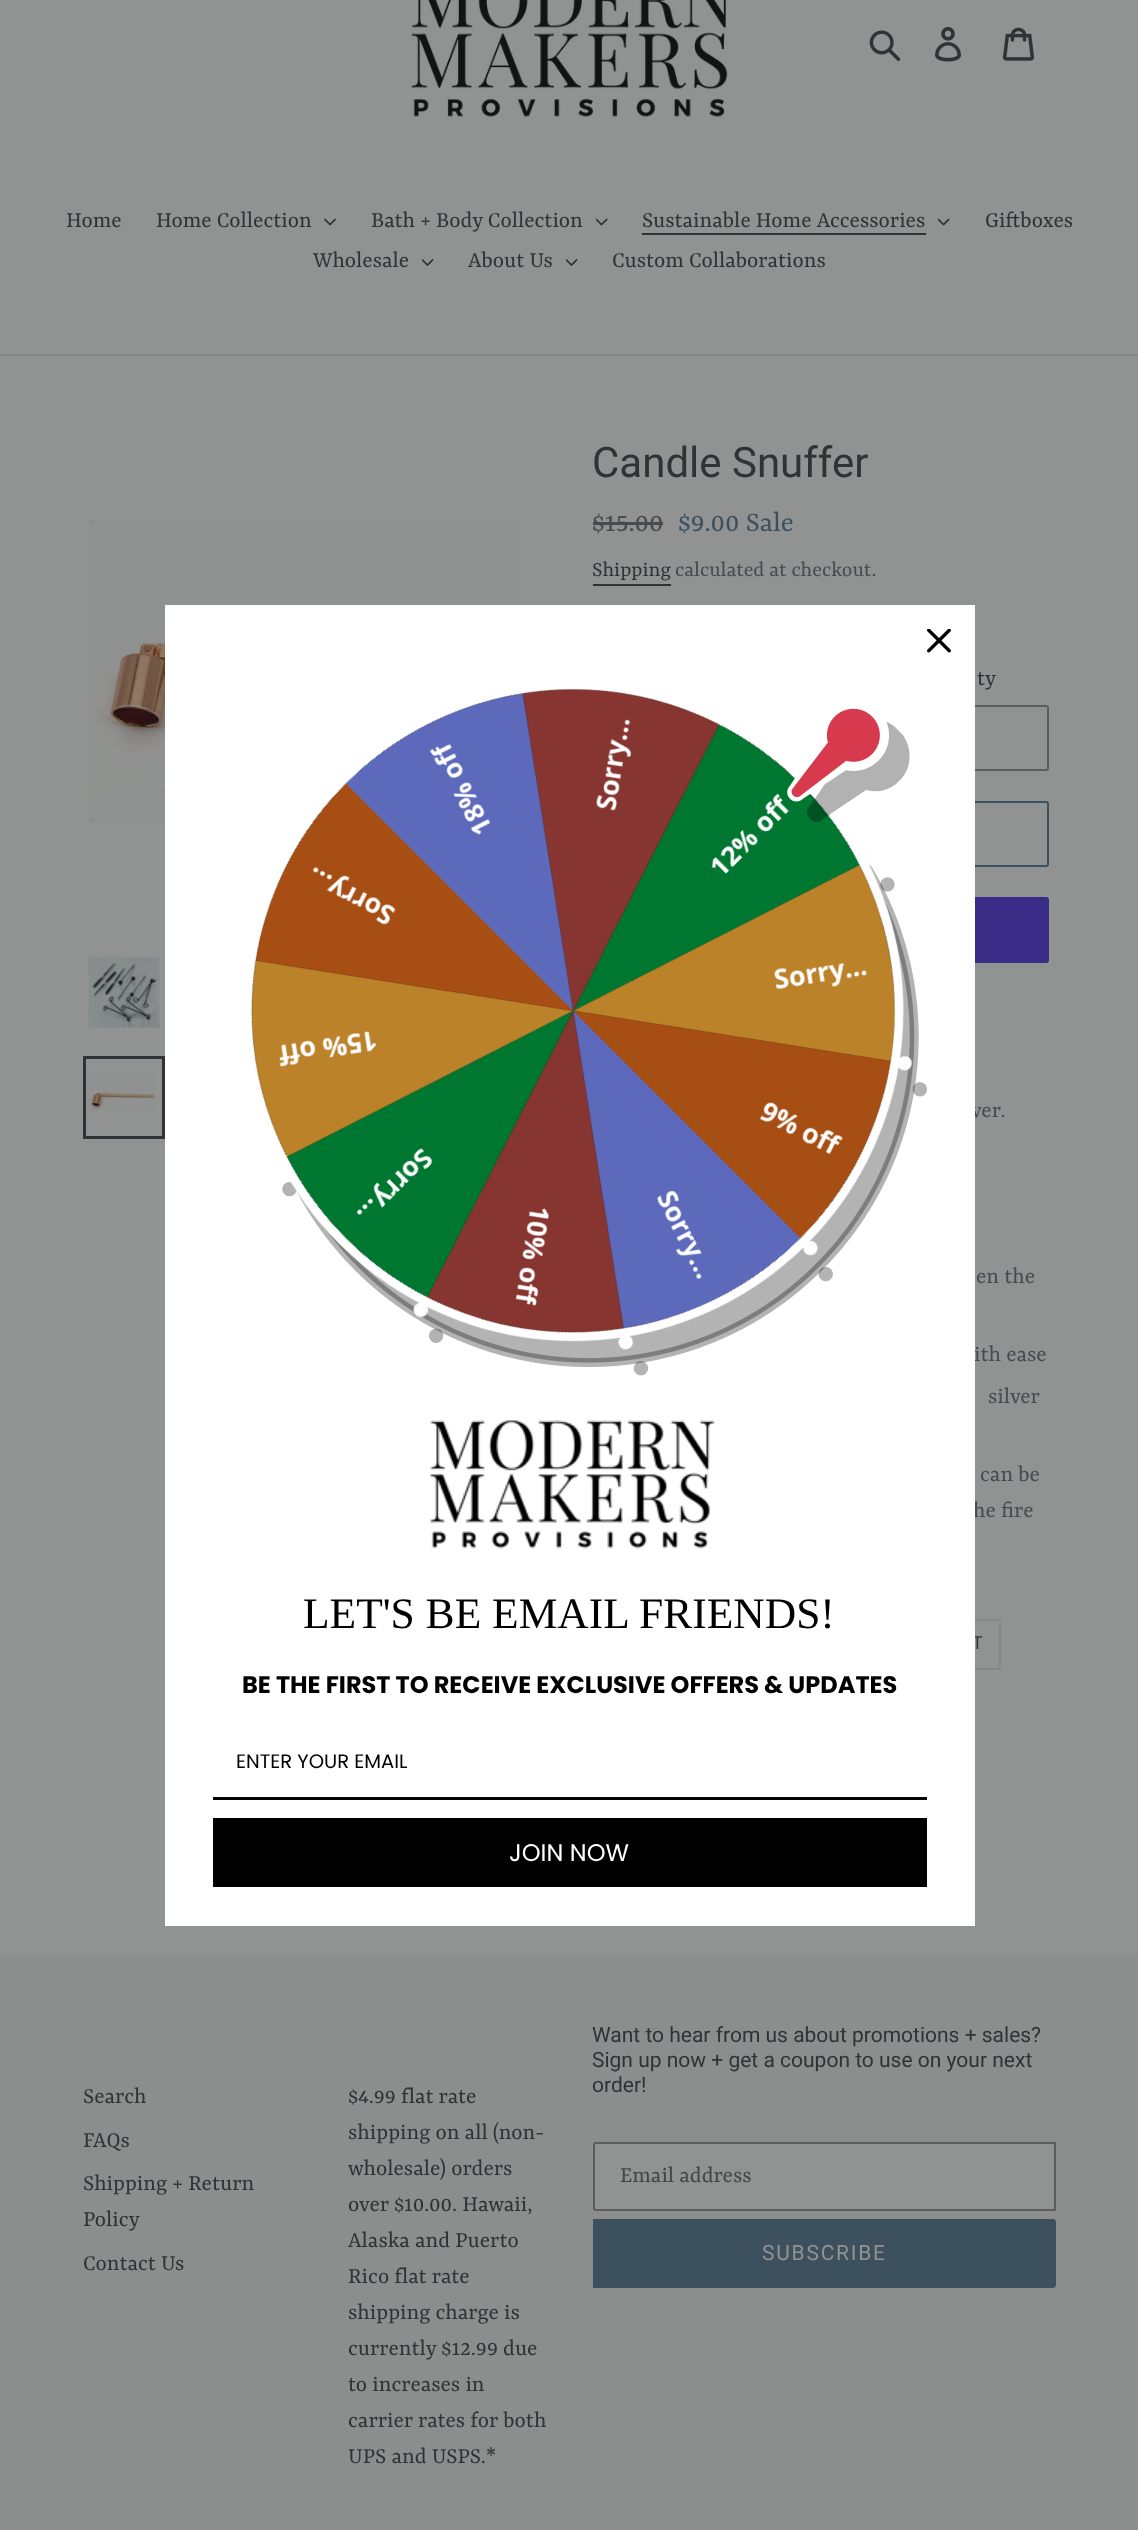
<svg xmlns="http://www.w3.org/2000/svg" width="1138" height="2530">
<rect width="100%" height="100%" fill="#919292"/>
<image x="411" y="0" width="317" height="117" href="media/1.png"/>
<image x="869" y="30" width="32" height="32" href="media/2.png"/>
<image x="935" y="27" width="26" height="35" href="media/3.png"/>
<image x="1002" y="27" width="32" height="34" href="media/4.png"/>
<rect y="354" width="1138" height="2" fill="#858788"/>
<text x="66" y="227" style="font-family:Yrsa;font-size:24px;fill:#303335">Home</text>
<text x="156" y="227" style="font-family:Yrsa;font-size:24px;fill:#303335">Home Collection</text>
<image x="324" y="218" width="12" height="8" href="media/5.png"/>
<text x="371" y="227" style="font-family:Yrsa;font-size:24px;fill:#303335">Bath + Body Collection</text>
<image x="596" y="218" width="12" height="8" href="media/6.png"/>
<text x="642" y="227" style="font-family:Yrsa;font-size:24px;fill:#303335">Sustainable Home Accessories</text>
<rect x="642" y="233" width="284" height="2" fill="#303335"/>
<image x="938" y="218" width="12" height="8" href="media/6.png"/>
<text x="985" y="227" style="font-family:Yrsa;font-size:24px;fill:#303335">Giftboxes</text>
<text x="313" y="267" style="font-family:Yrsa;font-size:24px;fill:#303335">Wholesale</text>
<image x="422" y="259" width="12" height="7" href="media/7.png"/>
<text x="468" y="267" style="font-family:Yrsa;font-size:24px;fill:#303335">About Us</text>
<image x="566" y="259" width="12" height="7" href="media/7.png"/>
<text x="612" y="267" style="font-family:Yrsa;font-size:24px;fill:#303335">Custom Collaborations</text>
<image x="89" y="519" width="429" height="303" href="media/8.png"/>
<image x="88" y="956" width="72" height="72" href="media/9.png"/>
<rect x="84.5" y="1057.5" width="79" height="80" fill="none" stroke="#303335" stroke-width="3"/>
<image x="88" y="1074" width="67" height="37" href="media/10.png"/>
<text x="592" y="477" style="font-family:Roboto;font-size:42px;fill:#303335">Candle Snuffer</text>
<text x="592" y="531" style="font-family:Yrsa;font-size:30px;fill:#464b50">$15.00</text>
<rect x="593" y="522" width="70" height="3" fill="#464b50"/>
<text x="678" y="531" style="font-family:Yrsa;font-size:30px;fill:#3c505e">$9.00 Sale</text>
<text x="592" y="576" style="font-family:Yrsa;font-size:22.5px;fill:#303335">Shipping</text>
<rect x="593" y="584" width="78" height="2" fill="#303335"/>
<text x="675" y="576" style="font-family:Yrsa;font-size:22.5px;fill:#464b50">calculated at checkout.</text>
<text x="977" y="685" style="font-family:Yrsa;font-size:24px;fill:#303335">ty</text>
<rect x="915" y="706" width="133" height="64" rx="2" fill="none" stroke="#5b5c5c" stroke-width="2"/>
<rect x="601" y="802" width="447" height="64" rx="2" fill="none" stroke="#3c505e" stroke-width="2"/>
<rect x="600" y="897" width="449" height="66" rx="3" fill="#3b2c88"/>
<text x="971" y="1117" style="font-family:Yrsa;font-size:24px;fill:#464b50">ver.</text>
<text x="976" y="1283" style="font-family:Yrsa;font-size:24px;fill:#464b50">en the</text>
<text x="974" y="1361" style="font-family:Yrsa;font-size:24px;fill:#464b50">ith ease</text>
<text x="988" y="1403" style="font-family:Yrsa;font-size:24px;fill:#464b50">silver</text>
<text x="980" y="1481" style="font-family:Yrsa;font-size:24px;fill:#464b50">can be</text>
<text x="973" y="1517" style="font-family:Yrsa;font-size:24px;fill:#464b50">he fire</text>
<rect x="876" y="1620" width="124" height="49" rx="2" fill="none" stroke="#858788" stroke-width="2"/>
<text x="972" y="1649" style="font-family:Roboto;font-size:18px;letter-spacing:1px;fill:#303335">T</text>
<rect y="1955" width="1138" height="575" fill="#8c8d8d"/>
<text x="83" y="2103" style="font-family:Yrsa;font-size:24px;fill:#303335">Search</text>
<text x="83" y="2147" style="font-family:Yrsa;font-size:24px;fill:#303335">FAQs</text>
<text x="83" y="2190" style="font-family:Yrsa;font-size:24px;fill:#303335">Shipping + Return</text>
<text x="83" y="2226" style="font-family:Yrsa;font-size:24px;fill:#303335">Policy</text>
<text x="83" y="2270" style="font-family:Yrsa;font-size:24px;fill:#303335">Contact Us</text>
<text x="348" y="2103" style="font-family:Yrsa;font-size:24px;fill:#303335">$4.99 flat rate</text>
<text x="348" y="2139" style="font-family:Yrsa;font-size:24px;fill:#303335">shipping on all (non-</text>
<text x="348" y="2175" style="font-family:Yrsa;font-size:24px;fill:#303335">wholesale) orders</text>
<text x="348" y="2211" style="font-family:Yrsa;font-size:24px;fill:#303335">over $10.00. Hawaii,</text>
<text x="348" y="2247" style="font-family:Yrsa;font-size:24px;fill:#303335">Alaska and Puerto</text>
<text x="348" y="2283" style="font-family:Yrsa;font-size:24px;fill:#303335">Rico flat rate</text>
<text x="348" y="2319" style="font-family:Yrsa;font-size:24px;fill:#303335">shipping charge is</text>
<text x="348" y="2355" style="font-family:Yrsa;font-size:24px;fill:#303335">currently $12.99 due</text>
<text x="348" y="2391" style="font-family:Yrsa;font-size:24px;fill:#303335">to increases in</text>
<text x="348" y="2427" style="font-family:Yrsa;font-size:24px;fill:#303335">carrier rates for both</text>
<text x="348" y="2463" style="font-family:Yrsa;font-size:24px;fill:#303335">UPS and USPS.*</text>
<text x="592" y="2042" style="font-family:Roboto;font-size:21px;fill:#303335">Want to hear from us about promotions + sales?</text>
<text x="592" y="2067" style="font-family:Roboto;font-size:21px;fill:#303335">Sign up now + get a coupon to use on your next</text>
<text x="592" y="2092" style="font-family:Roboto;font-size:21px;fill:#303335">order!</text>
<path d="M596 2143h459v67h-459c-1 0-2-1-2-2v-63c0-1 1-2 2-2z" fill="#919292" stroke="#5b5c5c" stroke-width="2"/>
<text x="620" y="2182" style="font-family:Yrsa;font-size:24px;fill:#444545">Email address</text>
<path d="M593 2219h460c1.5 0 3 1.5 3 3v63c0 1.5-1.5 3-3 3h-460z" fill="#3c505e"/>
<text x="762" y="2260" style="font-family:Roboto;font-size:21px;letter-spacing:1.75px;fill:#919292">SUBSCRIBE</text>
<rect x="165" y="605" width="810" height="1321" fill="#fff"/>
<image x="927" y="629" width="24" height="24" href="media/11.png"/>
<image x="282" y="843" width="645" height="533" href="media/14.png"/>
<image x="249" y="688" width="664" height="662" href="media/12.png"/>
<path d="M844 735l9-9c12-9 29-9 41 0l9 9c9 13 9 31-1 43l-6 6c-9 7-19 9-30 6l-43 29c-4 4-9 4-13 0c-4-4-4-9 0-13l29-43c-2-10-1-20 5-28z" fill="#0000004d"/>
<image x="787" y="708" width="102" height="94" href="media/13.png"/>
<image x="430" y="1419" width="285" height="130" href="media/15.png"/>
<text x="303" y="1628" style="font-family:Liberation Serif;font-size:43.5px;fill:#000">LET'S BE EMAIL FRIENDS!</text>
<text x="242" y="1693" style="font-family:Poppins;font-size:24px;font-weight:bold;fill:#000">BE THE FIRST TO RECEIVE EXCLUSIVE OFFERS &amp; UPDATES</text>
<rect x="213" y="1797" width="714" height="3" fill="#000"/>
<text x="236" y="1768" style="font-family:Poppins;font-size:19.5px;fill:#000">ENTER YOUR EMAIL</text>
<rect x="213" y="1818" width="714" height="69" fill="#000"/>
<text x="509" y="1861" style="font-family:Poppins;font-size:24px;fill:#fff">JOIN NOW</text>
</svg>
